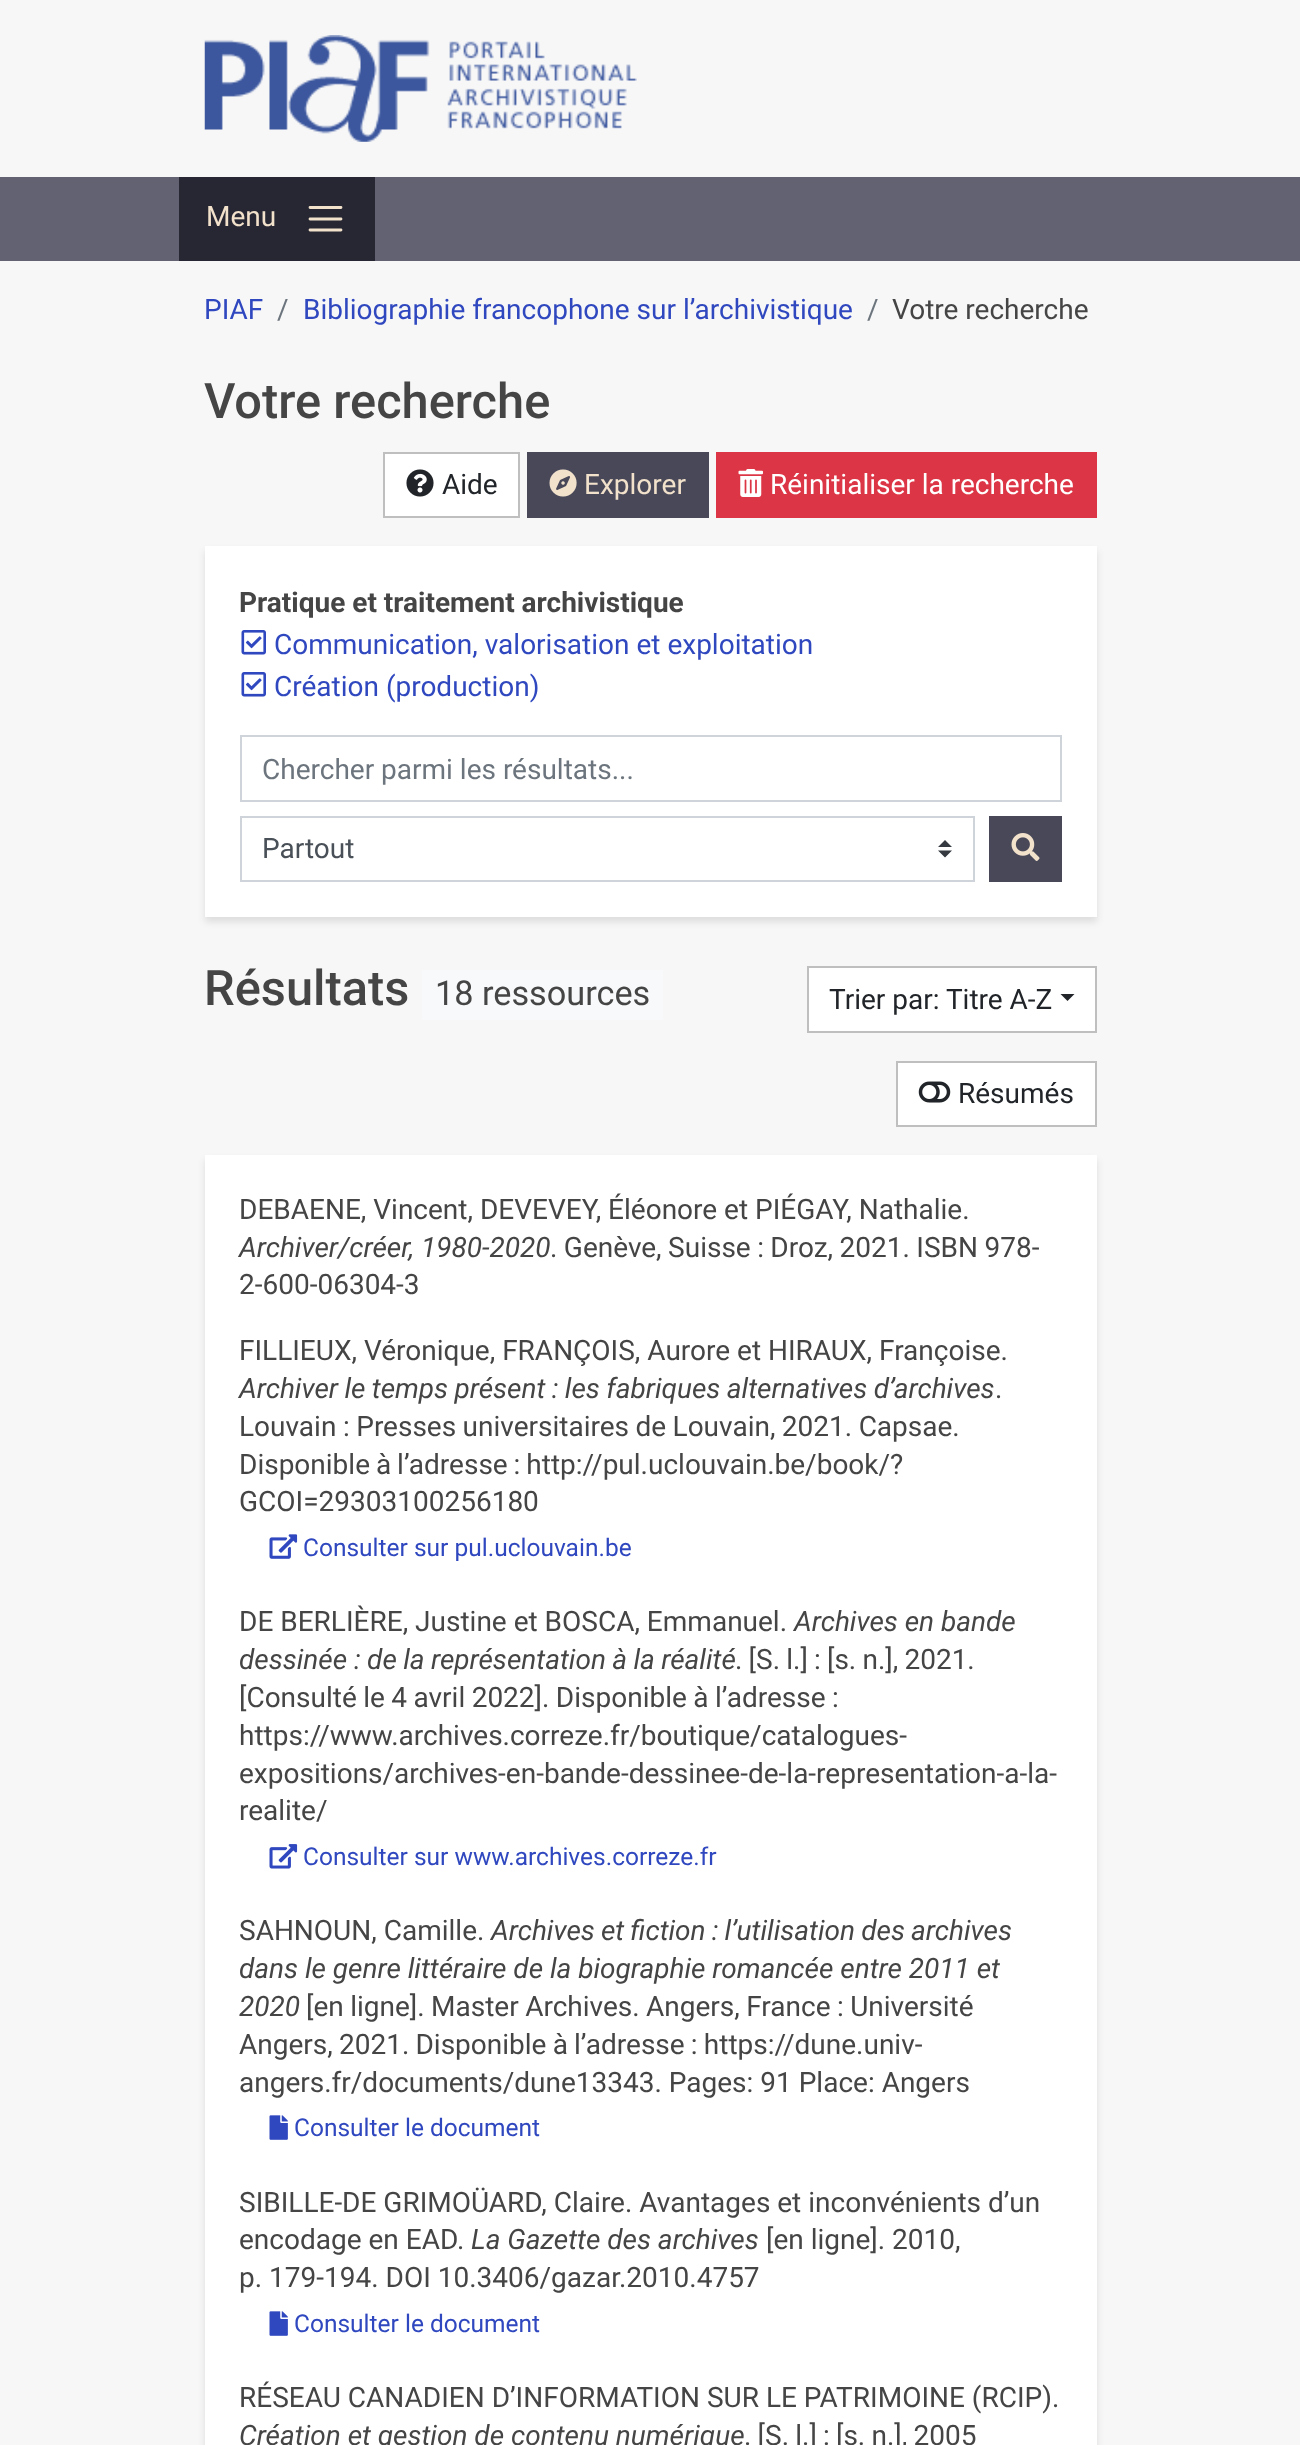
<svg xmlns="http://www.w3.org/2000/svg" width="1300" height="2445">
<rect width="100%" height="100%" fill="#f7f7f7"/>
<image x="204" y="35" width="433" height="107" href="media/1.png"/>
<rect y="177" width="1300" height="84" fill="#626272"/>
<rect x="179" y="177" width="196" height="84" fill="#272733"/>
<text x="206" y="226" style="font-family:Roboto;font-size:28px;fill:#f2e1cb">Menu</text>
<path d="M310 207.5h31m-31 11.5h31m-31 11h31" fill="none" stroke="#f2e1cb" stroke-width="2.8" stroke-linecap="round"/>
<text x="204" y="319" style="font-family:Roboto;font-size:28px;fill:#3048bf">PIAF</text>
<text x="277" y="319" style="font-family:Roboto;font-size:28px;fill:#6c757d">/</text>
<text x="303" y="319" style="font-family:Roboto;font-size:28px;fill:#3048bf">Bibliographie francophone sur l’archivistique</text>
<text x="867" y="319" style="font-family:Roboto;font-size:28px;fill:#6c757d">/</text>
<text x="892" y="319" style="font-family:Roboto;font-size:28px;fill:#454545">Votre recherche</text>
<text x="204" y="418" style="font-family:Roboto;font-size:48.75px;font-weight:500;fill:#454545">Votre recherche</text>
<rect x="384" y="453" width="135" height="64" fill="#fff" stroke="#bfbfbf" stroke-width="2"/>
<image x="406" y="469" width="28" height="28" href="media/2.png"/>
<text x="442" y="494" style="font-family:Roboto;font-size:28px;fill:#212529">Aide</text>
<rect x="527" y="452" width="182" height="66" fill="#484858"/>
<image x="549" y="469" width="28" height="28" href="media/3.png"/>
<text x="584" y="494" style="font-family:Roboto;font-size:28px;fill:#f2e1cb">Explorer</text>
<rect x="716" y="452" width="381" height="66" fill="#dc3545"/>
<image x="738" y="469" width="25" height="28" href="media/4.png"/>
<text x="770" y="494" style="font-family:Roboto;font-size:28px;fill:#fff">Réinitialiser la recherche</text>
<rect x="205" y="551" width="892" height="371" fill="#0000001a" filter="blur(3.5px)"/>
<rect x="205" y="546" width="892" height="371" fill="#fff"/>
<text x="239" y="612" style="font-family:Roboto;font-size:28px;font-weight:bold;fill:#454545">Pratique et traitement archivistique</text>
<image x="241" y="630" width="25" height="25" href="media/5.png"/>
<text x="274" y="654" style="font-family:Roboto;font-size:28px;fill:#3048bf">Communication, valorisation et exploitation</text>
<image x="241" y="672" width="25" height="25" href="media/5.png"/>
<text x="274" y="696" style="font-family:Roboto;font-size:28px;fill:#3048bf">Création (production)</text>
<rect x="241" y="736" width="820" height="65" fill="none" stroke="#ced4da" stroke-width="2"/>
<text x="262" y="779" style="font-family:Roboto;font-size:28px;fill:#6c757d">Chercher parmi les résultats...</text>
<path d="M945 840l-7 7h14zm0 17.5l-7-7h14z" fill="#343a40"/>
<rect x="241" y="817" width="733" height="64" fill="none" stroke="#ced4da" stroke-width="2"/>
<text x="262" y="858" style="font-family:Roboto;font-size:28px;fill:#495057">Partout</text>
<rect x="989" y="816" width="73" height="66" fill="#484858"/>
<image x="1011" y="833" width="29" height="28" href="media/6.png"/>
<text x="204" y="1005" style="font-family:Roboto;font-size:48.75px;font-weight:500;fill:#454545">Résultats</text>
<rect x="422" y="970" width="241" height="50" fill="#f8f9fa"/>
<text x="435" y="1005" style="font-family:Roboto;font-size:34.25px;fill:#454545">18 ressources</text>
<rect x="808" y="967" width="288" height="65" fill="#fff" stroke="#bfbfbf" stroke-width="2"/>
<text x="829" y="1009" style="font-family:Roboto;font-size:28px;fill:#212529">Trier par: Titre A-Z</text>
<path d="M1060.5 994h14l-7 7z" fill="#212529"/>
<rect x="897" y="1062" width="199" height="64" fill="#fff" stroke="#bfbfbf" stroke-width="2"/>
<image x="918" y="1081" width="33" height="22" href="media/7.png"/>
<text x="958" y="1103" style="font-family:Roboto;font-size:28px;fill:#212529">Résumés</text>
<rect x="205" y="1160" width="892" height="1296" fill="#0000001a" filter="blur(3.5px)"/>
<rect x="205" y="1155" width="892" height="1290" fill="#fff"/>
<text x="239" y="1219" style="font-family:Roboto;font-size:28px;fill:#454545">DEBAENE, Vincent, DEVEVEY, Éléonore et PIÉGAY, Nathalie.</text>
<text x="239" y="1257" style="font-family:Roboto;font-size:28px;font-style:italic;fill:#454545">Archiver/créer, 1980-2020</text>
<text x="550" y="1257" word-spacing="-0.5" style="font-family:Roboto;font-size:28px;fill:#454545">. Genève, Suisse : Droz, 2021. ISBN 978-</text>
<text x="239" y="1294" style="font-family:Roboto;font-size:28px;fill:#454545">2-600-06304-3</text>
<text x="239" y="1360" style="font-family:Roboto;font-size:28px;fill:#454545">FILLIEUX, Véronique, FRANÇOIS, Aurore et HIRAUX, Françoise.</text>
<text x="239" y="1398" word-spacing="-0.5" style="font-family:Roboto;font-size:28px;font-style:italic;fill:#454545">Archiver le temps présent : les fabriques alternatives d’archives</text>
<text x="995" y="1398" style="font-family:Roboto;font-size:28px;fill:#454545">.</text>
<text x="239" y="1436" style="font-family:Roboto;font-size:28px;fill:#454545">Louvain</text>
<text x="343" y="1436" word-spacing="-0.5" style="font-family:Roboto;font-size:28px;fill:#454545">: Presses universitaires de Louvain, 2021. Capsae.</text>
<text x="239" y="1474" word-spacing="-1" style="font-family:Roboto;font-size:28px;fill:#454545">Disponible à l’adresse : http://pul.uclouvain.be/book/?</text>
<text x="239" y="1511" style="font-family:Roboto;font-size:28px;fill:#454545">GCOI=29303100256180</text>
<image x="269" y="1534" width="29" height="25" href="media/8.png"/>
<text x="303" y="1556" style="font-family:Roboto;font-size:24.5px;fill:#3048bf">Consulter sur pul.uclouvain.be</text>
<text x="239" y="1631" style="font-family:Roboto;font-size:28px;fill:#454545">DE BERLIÈRE, Justine et BOSCA, Emmanuel.</text>
<text x="794" y="1631" style="font-family:Roboto;font-size:28px;font-style:italic;fill:#454545">Archives en bande</text>
<text x="239" y="1669" style="font-family:Roboto;font-size:28px;font-style:italic;fill:#454545">dessinée</text>
<text x="354" y="1669" word-spacing="-0.5" style="font-family:Roboto;font-size:28px;font-style:italic;fill:#454545">: de la représentation à la réalité</text>
<text x="735" y="1669" word-spacing="-0.75" style="font-family:Roboto;font-size:28px;fill:#454545">. [S. l.] : [s. n.], 2021.</text>
<text x="239" y="1707" word-spacing="-0.5" style="font-family:Roboto;font-size:28px;fill:#454545">[Consulté le 4 avril 2022]. Disponible à l’adresse</text>
<text x="832" y="1707" style="font-family:Roboto;font-size:28px;fill:#454545">:</text>
<text x="239" y="1745" style="font-family:Roboto;font-size:28px;fill:#454545">https://www.archives.correze.fr/boutique/catalogues-</text>
<text x="239" y="1783" style="font-family:Roboto;font-size:28px;fill:#454545">expositions/archives-en-bande-dessinee-de-la-representation-a-la-</text>
<text x="239" y="1820" style="font-family:Roboto;font-size:28px;fill:#454545">realite/</text>
<image x="269" y="1844" width="29" height="25" href="media/9.png"/>
<text x="303" y="1865" style="font-family:Roboto;font-size:24.5px;fill:#3048bf">Consulter sur www.archives.correze.fr</text>
<text x="239" y="1940" style="font-family:Roboto;font-size:28px;fill:#454545">SAHNOUN, Camille.</text>
<text x="491" y="1940" word-spacing="-0.75" style="font-family:Roboto;font-size:28px;font-style:italic;fill:#454545">Archives et fiction : l’utilisation des archives</text>
<text x="239" y="1978" style="font-family:Roboto;font-size:28px;font-style:italic;fill:#454545">dans le genre littéraire de la biographie romancée entre 2011 et</text>
<text x="239" y="2016" style="font-family:Roboto;font-size:28px;font-style:italic;fill:#454545">2020</text>
<text x="306" y="2016" word-spacing="-0.5" style="font-family:Roboto;font-size:28px;fill:#454545">[en ligne]. Master Archives. Angers, France : Université</text>
<text x="239" y="2054" word-spacing="-0.75" style="font-family:Roboto;font-size:28px;fill:#454545">Angers, 2021. Disponible à l’adresse : https://dune.univ-</text>
<text x="239" y="2092" style="font-family:Roboto;font-size:28px;fill:#454545">angers.fr/documents/dune13343. Pages: 91 Place: Angers</text>
<image x="269" y="2115" width="19" height="25" href="media/10.png"/>
<text x="294" y="2136" style="font-family:Roboto;font-size:24.5px;fill:#3048bf">Consulter le document</text>
<text x="239" y="2212" style="font-family:Roboto;font-size:28px;fill:#454545">SIBILLE-DE GRIMOÜARD, Claire. Avantages et inconvénients d’un</text>
<text x="239" y="2249" style="font-family:Roboto;font-size:28px;fill:#454545">encodage en EAD.</text>
<text x="471" y="2249" style="font-family:Roboto;font-size:28px;font-style:italic;fill:#454545">La Gazette des archives</text>
<text x="766" y="2249" style="font-family:Roboto;font-size:28px;fill:#454545">[en ligne]. 2010,</text>
<text x="239" y="2287" style="font-family:Roboto;font-size:28px;fill:#454545">p. 179‑194. DOI 10.3406/gazar.2010.4757</text>
<image x="269" y="2311" width="19" height="25" href="media/10.png"/>
<text x="294" y="2332" style="font-family:Roboto;font-size:24.5px;fill:#3048bf">Consulter le document</text>
<text x="239" y="2407" style="font-family:Roboto;font-size:28px;fill:#454545">RÉSEAU CANADIEN D’INFORMATION SUR LE PATRIMOINE (RCIP).</text>
<text x="239" y="2445" style="font-family:Roboto;font-size:28px;font-style:italic;fill:#454545">Création et gestion de contenu numérique</text>
<text x="744" y="2445" word-spacing="-0.75" style="font-family:Roboto;font-size:28px;fill:#454545">. [S. l.] : [s. n.], 2005</text>
</svg>
